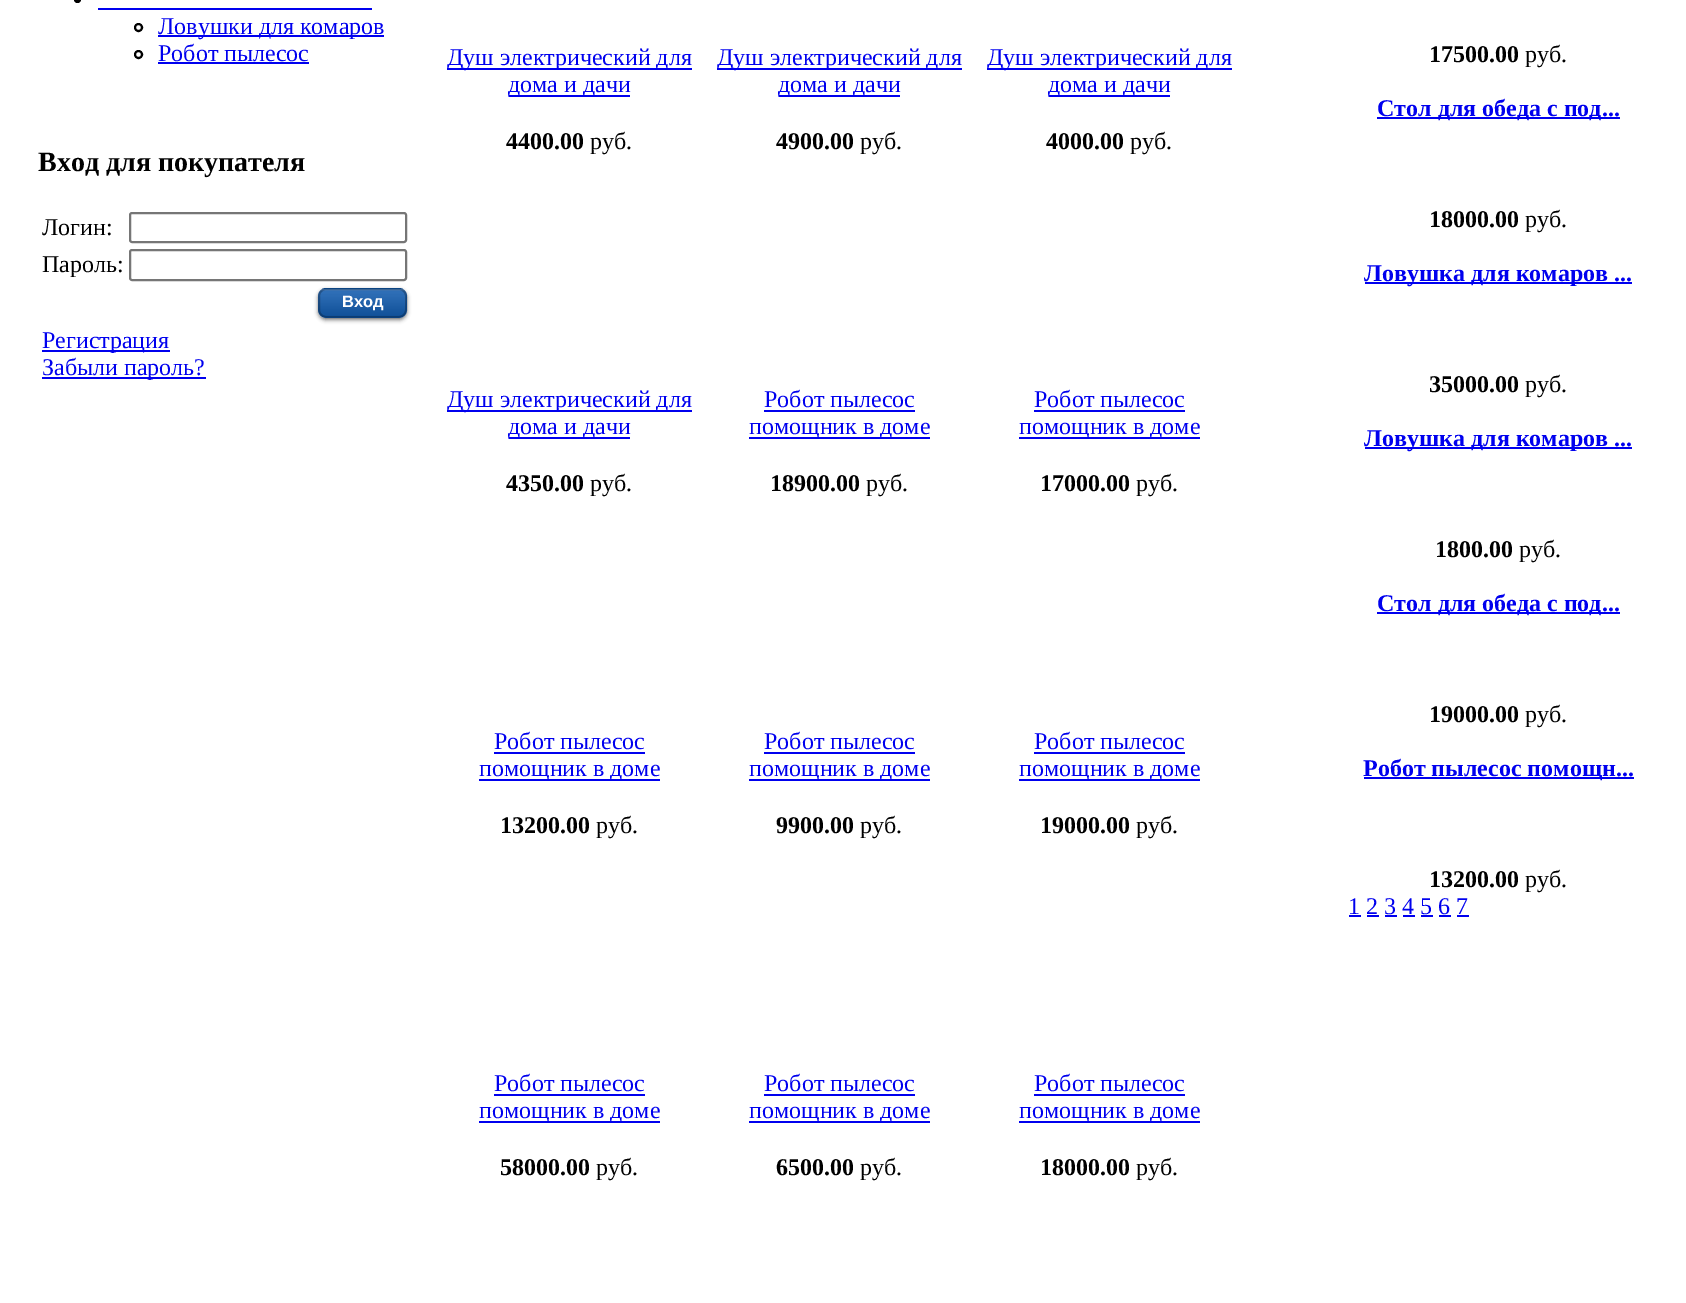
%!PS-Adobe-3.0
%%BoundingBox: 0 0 1686 1303
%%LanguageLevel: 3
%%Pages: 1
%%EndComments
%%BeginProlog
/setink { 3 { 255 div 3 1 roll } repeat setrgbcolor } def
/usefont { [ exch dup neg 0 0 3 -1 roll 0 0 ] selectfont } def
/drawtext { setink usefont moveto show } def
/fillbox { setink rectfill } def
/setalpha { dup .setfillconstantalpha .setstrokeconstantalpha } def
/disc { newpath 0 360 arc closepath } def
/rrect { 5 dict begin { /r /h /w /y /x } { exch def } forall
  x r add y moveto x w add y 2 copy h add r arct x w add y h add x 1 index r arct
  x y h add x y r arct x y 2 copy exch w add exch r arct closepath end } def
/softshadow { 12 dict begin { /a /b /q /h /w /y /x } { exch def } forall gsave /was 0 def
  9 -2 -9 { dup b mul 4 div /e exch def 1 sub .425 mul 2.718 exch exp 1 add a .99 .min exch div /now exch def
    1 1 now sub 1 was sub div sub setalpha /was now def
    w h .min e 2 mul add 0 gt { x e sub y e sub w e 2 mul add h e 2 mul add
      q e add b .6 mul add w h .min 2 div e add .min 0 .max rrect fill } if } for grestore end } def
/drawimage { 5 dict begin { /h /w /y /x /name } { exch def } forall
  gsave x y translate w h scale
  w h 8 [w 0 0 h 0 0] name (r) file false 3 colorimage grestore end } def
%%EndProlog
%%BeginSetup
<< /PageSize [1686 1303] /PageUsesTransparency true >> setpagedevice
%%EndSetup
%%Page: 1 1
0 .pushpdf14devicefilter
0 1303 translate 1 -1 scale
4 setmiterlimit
0 0 1686 1303 255 255 255 fillbox
0 0 0 setink
77.5 -0.5 3.5 disc fill
98 8 274 2 0 0 238 fillbox
0 0 0 setink
2 setlinewidth
138.5 27.5 3.5 disc stroke
158 35 226 2 0 0 238 fillbox
(Ловушки для комаров) 158 34 /LiberationSerif-Regular 24 0 0 238 drawtext
0 0 0 setink
138.5 54.5 3.5 disc stroke
(Робот пылесос) 158 61 /LiberationSerif-Regular 24 0 0 238 drawtext
158 62 151 2 0 0 238 fillbox
(Вход для покупателя) 38 171 /LiberationSerif-Bold 28 0 0 0 drawtext
(Логин:) 42 235 /LiberationSerif-Regular 24 0 0 0 drawtext
118 118 118 setink
130 213 276 29 2 rrect stroke
(Пароль:) 42 272 /LiberationSerif-Regular 24 0 0 0 drawtext
118 118 118 setink
130 250 276 30 2 rrect stroke
0 0 0 setink
318 290 89 30 8 2 0.5 softshadow
14 89 174 setink
318 288 89 30 8 rrect fill
(assets/img1.rgb) 318 289 89 29 drawimage
0.25 setalpha
0 0 0 setink
319 289 87 28 7 rrect stroke
1 setalpha
(Вход) 342 307 /LiberationSans-Bold 16.5 255 255 255 drawtext
42 350 128 2 0 0 238 fillbox
(Регистрация) 42 348 /LiberationSerif-Regular 24 0 0 238 drawtext
42 377 164 2 0 0 238 fillbox
(Забыли пароль?) 42 375 /LiberationSerif-Regular 24 0 0 238 drawtext
447 68 245 2 0 0 238 fillbox
(Душ электрический для) 447 65 /LiberationSerif-Regular 24 0 0 238 drawtext
509 95 121 2 0 0 238 fillbox
(дома и дачи) 508 92 /LiberationSerif-Regular 24 0 0 238 drawtext
(4400.00) 506 149 /LiberationSerif-Bold 24 0 0 0 drawtext
(руб.) 590 149 /LiberationSerif-Regular 24 0 0 0 drawtext
717 68 245 2 0 0 238 fillbox
(Душ электрический для) 717 65 /LiberationSerif-Regular 24 0 0 238 drawtext
779 95 121 2 0 0 238 fillbox
(дома и дачи) 778 92 /LiberationSerif-Regular 24 0 0 238 drawtext
(4900.00) 776 149 /LiberationSerif-Bold 24 0 0 0 drawtext
(руб.) 860 149 /LiberationSerif-Regular 24 0 0 0 drawtext
987 68 245 2 0 0 238 fillbox
(Душ электрический для) 987 65 /LiberationSerif-Regular 24 0 0 238 drawtext
1049 95 121 2 0 0 238 fillbox
(дома и дачи) 1048 92 /LiberationSerif-Regular 24 0 0 238 drawtext
(4000.00) 1046 149 /LiberationSerif-Bold 24 0 0 0 drawtext
(руб.) 1130 149 /LiberationSerif-Regular 24 0 0 0 drawtext
447 410 245 2 0 0 238 fillbox
(Душ электрический для) 447 407 /LiberationSerif-Regular 24 0 0 238 drawtext
509 437 121 2 0 0 238 fillbox
(дома и дачи) 508 434 /LiberationSerif-Regular 24 0 0 238 drawtext
(4350.00) 506 491 /LiberationSerif-Bold 24 0 0 0 drawtext
(руб.) 590 491 /LiberationSerif-Regular 24 0 0 0 drawtext
(Робот пылесос) 764 407 /LiberationSerif-Regular 24 0 0 238 drawtext
764 410 151 2 0 0 238 fillbox
749 437 181 2 0 0 238 fillbox
(помощник в доме) 749 434 /LiberationSerif-Regular 24 0 0 238 drawtext
(18900.00) 770 491 /LiberationSerif-Bold 24 0 0 0 drawtext
(руб.) 866 491 /LiberationSerif-Regular 24 0 0 0 drawtext
(Робот пылесос) 1034 407 /LiberationSerif-Regular 24 0 0 238 drawtext
1034 410 151 2 0 0 238 fillbox
1019 437 181 2 0 0 238 fillbox
(помощник в доме) 1019 434 /LiberationSerif-Regular 24 0 0 238 drawtext
(17000.00) 1040 491 /LiberationSerif-Bold 24 0 0 0 drawtext
(руб.) 1136 491 /LiberationSerif-Regular 24 0 0 0 drawtext
(Робот пылесос) 494 749 /LiberationSerif-Regular 24 0 0 238 drawtext
494 752 151 2 0 0 238 fillbox
479 779 181 2 0 0 238 fillbox
(помощник в доме) 479 776 /LiberationSerif-Regular 24 0 0 238 drawtext
(13200.00) 500 833 /LiberationSerif-Bold 24 0 0 0 drawtext
(руб.) 596 833 /LiberationSerif-Regular 24 0 0 0 drawtext
(Робот пылесос) 764 749 /LiberationSerif-Regular 24 0 0 238 drawtext
764 752 151 2 0 0 238 fillbox
749 779 181 2 0 0 238 fillbox
(помощник в доме) 749 776 /LiberationSerif-Regular 24 0 0 238 drawtext
(9900.00) 776 833 /LiberationSerif-Bold 24 0 0 0 drawtext
(руб.) 860 833 /LiberationSerif-Regular 24 0 0 0 drawtext
(Робот пылесос) 1034 749 /LiberationSerif-Regular 24 0 0 238 drawtext
1034 752 151 2 0 0 238 fillbox
1019 779 181 2 0 0 238 fillbox
(помощник в доме) 1019 776 /LiberationSerif-Regular 24 0 0 238 drawtext
(19000.00) 1040 833 /LiberationSerif-Bold 24 0 0 0 drawtext
(руб.) 1136 833 /LiberationSerif-Regular 24 0 0 0 drawtext
(Робот пылесос) 494 1091 /LiberationSerif-Regular 24 0 0 238 drawtext
494 1094 151 2 0 0 238 fillbox
479 1121 181 2 0 0 238 fillbox
(помощник в доме) 479 1118 /LiberationSerif-Regular 24 0 0 238 drawtext
(58000.00) 500 1175 /LiberationSerif-Bold 24 0 0 0 drawtext
(руб.) 596 1175 /LiberationSerif-Regular 24 0 0 0 drawtext
(Робот пылесос) 764 1091 /LiberationSerif-Regular 24 0 0 238 drawtext
764 1094 151 2 0 0 238 fillbox
749 1121 181 2 0 0 238 fillbox
(помощник в доме) 749 1118 /LiberationSerif-Regular 24 0 0 238 drawtext
(6500.00) 776 1175 /LiberationSerif-Bold 24 0 0 0 drawtext
(руб.) 860 1175 /LiberationSerif-Regular 24 0 0 0 drawtext
(Робот пылесос) 1034 1091 /LiberationSerif-Regular 24 0 0 238 drawtext
1034 1094 151 2 0 0 238 fillbox
1019 1121 181 2 0 0 238 fillbox
(помощник в доме) 1019 1118 /LiberationSerif-Regular 24 0 0 238 drawtext
(18000.00) 1040 1175 /LiberationSerif-Bold 24 0 0 0 drawtext
(руб.) 1136 1175 /LiberationSerif-Regular 24 0 0 0 drawtext
(17500.00) 1429 62 /LiberationSerif-Bold 24 0 0 0 drawtext
(руб.) 1525 62 /LiberationSerif-Regular 24 0 0 0 drawtext
1377 117 243 2 0 0 238 fillbox
(Стол для обеда с под...) 1377 116 /LiberationSerif-Bold 24 0 0 238 drawtext
(18000.00) 1429 227 /LiberationSerif-Bold 24 0 0 0 drawtext
(руб.) 1525 227 /LiberationSerif-Regular 24 0 0 0 drawtext
1365 282 267 2 0 0 238 fillbox
(Ловушка для комаров ...) 1364 281 /LiberationSerif-Bold 24 0 0 238 drawtext
(35000.00) 1429 392 /LiberationSerif-Bold 24 0 0 0 drawtext
(руб.) 1525 392 /LiberationSerif-Regular 24 0 0 0 drawtext
1365 447 267 2 0 0 238 fillbox
(Ловушка для комаров ...) 1364 446 /LiberationSerif-Bold 24 0 0 238 drawtext
(1800.00) 1435 557 /LiberationSerif-Bold 24 0 0 0 drawtext
(руб.) 1519 557 /LiberationSerif-Regular 24 0 0 0 drawtext
1377 612 243 2 0 0 238 fillbox
(Стол для обеда с под...) 1377 611 /LiberationSerif-Bold 24 0 0 238 drawtext
(19000.00) 1429 722 /LiberationSerif-Bold 24 0 0 0 drawtext
(руб.) 1525 722 /LiberationSerif-Regular 24 0 0 0 drawtext
1364 777 270 2 0 0 238 fillbox
(Робот пылесос помощн...) 1363 776 /LiberationSerif-Bold 24 0 0 238 drawtext
(13200.00) 1429 887 /LiberationSerif-Bold 24 0 0 0 drawtext
(руб.) 1525 887 /LiberationSerif-Regular 24 0 0 0 drawtext
(1 2 3 4 5 6 7) 1348 914 /LiberationSerif-Regular 24 0 0 238 drawtext
1349 915 12 2 0 0 238 fillbox
1367 915 12 2 0 0 238 fillbox
1385 915 12 2 0 0 238 fillbox
1403 915 12 2 0 0 238 fillbox
1421 915 12 2 0 0 238 fillbox
1439 915 12 2 0 0 238 fillbox
1457 915 12 2 0 0 238 fillbox
.poppdf14devicefilter showpage
%%EOF
